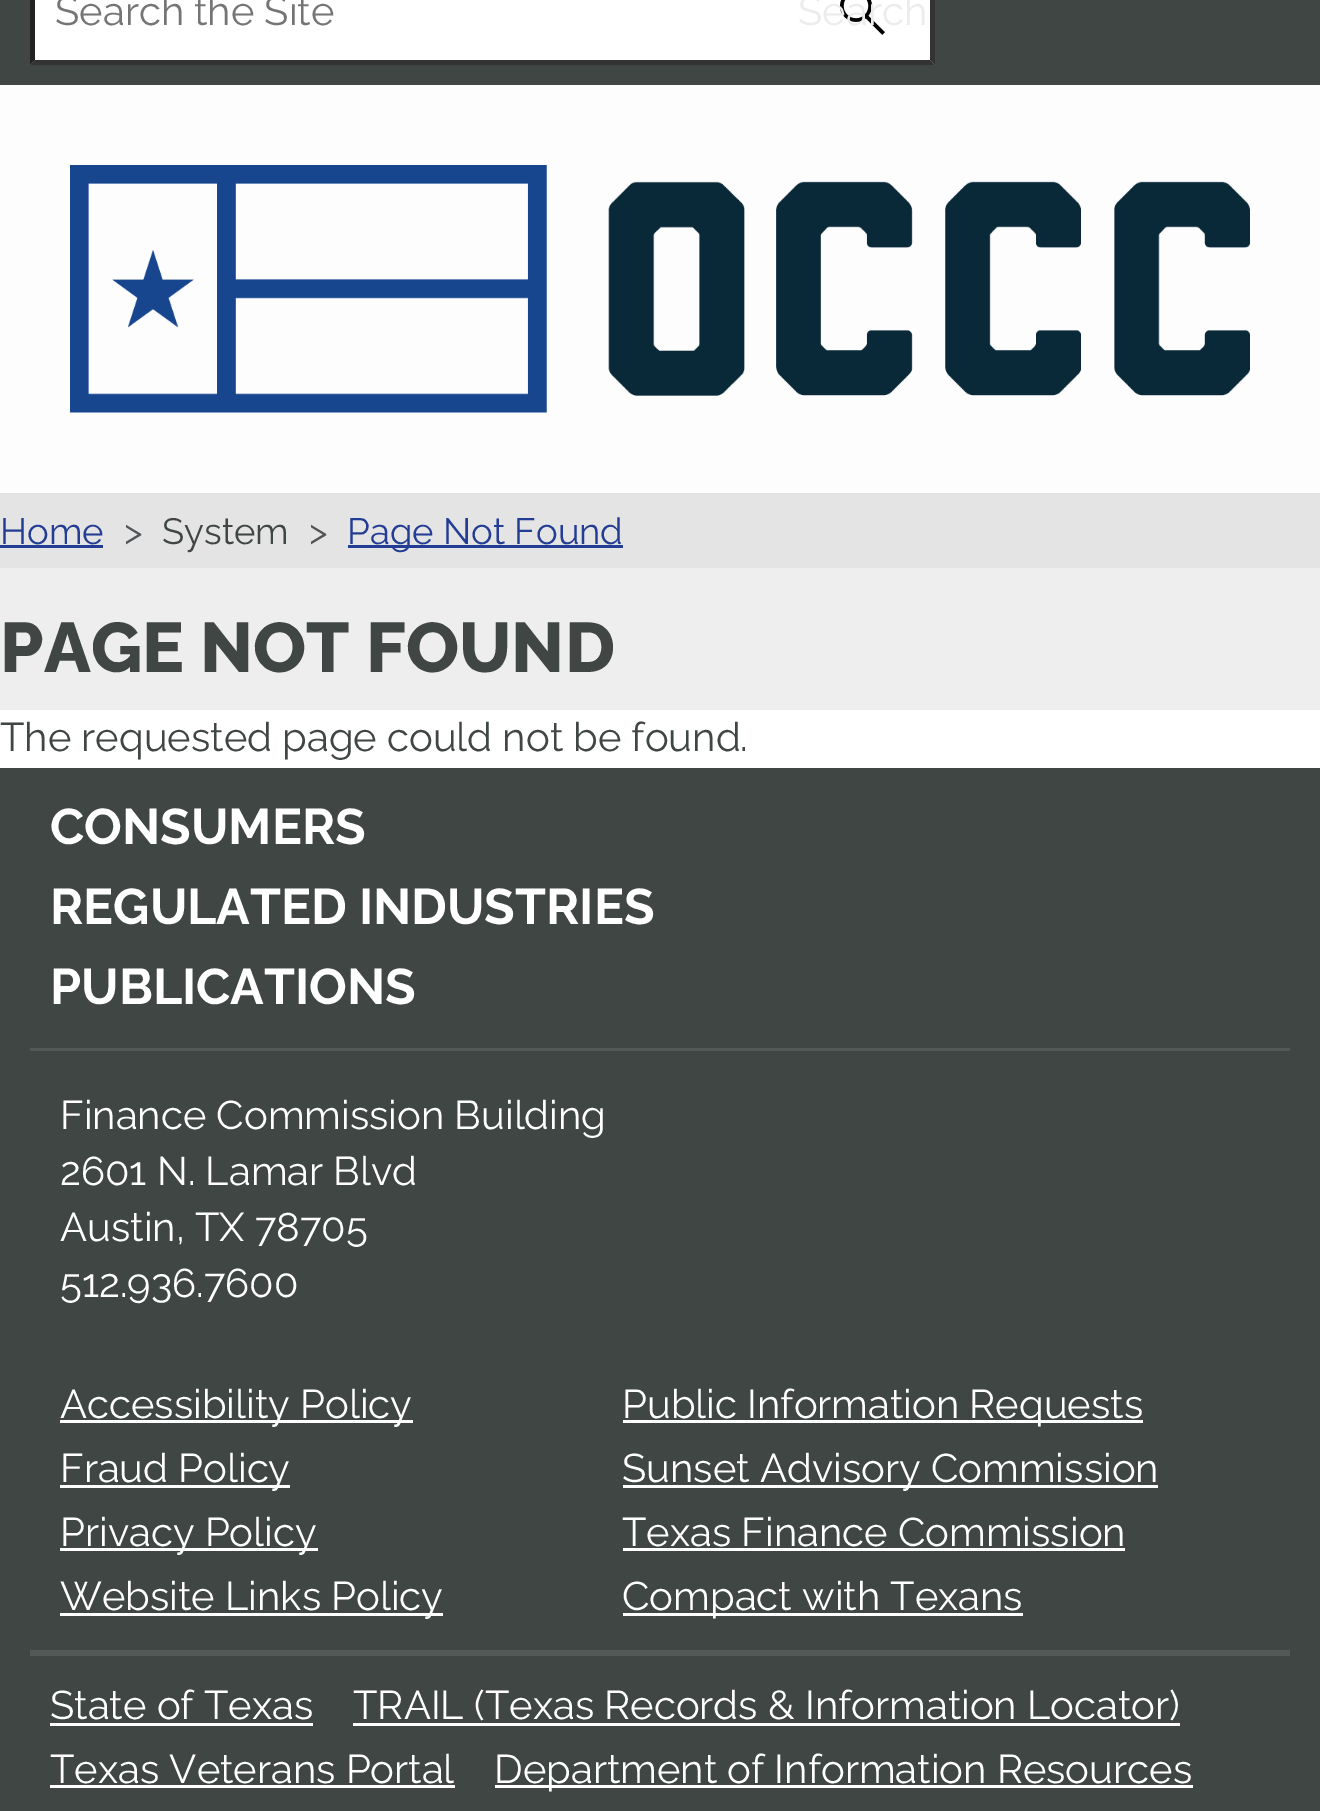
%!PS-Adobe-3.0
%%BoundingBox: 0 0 1320 1811
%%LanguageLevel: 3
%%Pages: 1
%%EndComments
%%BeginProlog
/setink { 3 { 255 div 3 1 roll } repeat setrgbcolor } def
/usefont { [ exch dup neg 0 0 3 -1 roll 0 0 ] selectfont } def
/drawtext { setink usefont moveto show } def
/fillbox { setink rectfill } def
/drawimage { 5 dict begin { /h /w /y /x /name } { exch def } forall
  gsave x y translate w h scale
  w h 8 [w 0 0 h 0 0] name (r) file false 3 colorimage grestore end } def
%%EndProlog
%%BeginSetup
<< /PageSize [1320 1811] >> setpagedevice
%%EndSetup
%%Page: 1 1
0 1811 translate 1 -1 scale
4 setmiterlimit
0 0 1320 1811 238 238 238 fillbox
0 0 1320 85 63 70 67 fillbox
30 0 905 65 255 255 255 fillbox
51 51 51 setink
935 -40 moveto 935 65 lineto 930 60 lineto 930 -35 lineto closepath fill
935 65 moveto 30 65 lineto 35 60 lineto 930 60 lineto closepath fill
34 34 34 setink
30 65 moveto 30 -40 lineto 35 -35 lineto 35 60 lineto closepath fill
(Search the Site) 55 25 /Raleway-Regular 40 117 117 117 drawtext
(assets/img1.rgb) 840 0 45 35 drawimage
(Search) 798 25 /Raleway-Regular 40 236 236 236 drawtext
0 85 1320 408 253 253 253 fillbox
(assets/img2.rgb) 70 165 1180 248 drawimage
0 493 1320 75 228 228 228 fillbox
(Home) 0 544 /Raleway-Regular 36.5 36 61 148 drawtext
0 545 103 3 36 61 148 fillbox
(>) 124 544 /Raleway-Regular 36.5 82 85 88 drawtext
(System) 162 544 /Raleway-Regular 36.5 63 70 67 drawtext
(>) 309 544 /Raleway-Regular 36.5 82 85 88 drawtext
348 545 275 3 36 61 148 fillbox
(Page Not Found) 347 544 /Raleway-Regular 36.5 36 61 148 drawtext
(PAGE NOT FOUND) 0 672 /Raleway-ExtraBold 70 63 70 67 drawtext
0 710 1320 58 255 255 255 fillbox
(The requested page could not be found.) 0 751 /Raleway-Regular 40 63 70 67 drawtext
0 768 1320 1043 63 70 67 fillbox
30 1048 1260 3 82 89 86 fillbox
(CONSUMERS) 50 844 /Raleway-Bold 50 255 255 255 drawtext
(REGULATED INDUSTRIES) 50 924 /Raleway-Bold 50 255 255 255 drawtext
(PUBLICATIONS) 50 1004 /Raleway-Bold 50 255 255 255 drawtext
30 1650 1260 6 82 89 86 fillbox
(Finance Commission Building) 60 1129 /Raleway-Regular 40 255 255 255 drawtext
(2601 N. Lamar Blvd) 60 1185 /Raleway-Regular 40 255 255 255 drawtext
(Austin, TX 78705) 60 1241 /Raleway-Regular 40 255 255 255 drawtext
(512.936.7600) 60 1297 /Raleway-Regular 40 255 255 255 drawtext
60 1420 353 3 255 255 255 fillbox
(Accessibility Policy) 60 1418 /Raleway-Regular 40 255 255 255 drawtext
623 1420 520 3 255 255 255 fillbox
(Public Information Requests) 622 1418 /Raleway-Regular 40 255 255 255 drawtext
60 1485 230 3 255 255 255 fillbox
(Fraud Policy) 60 1482 /Raleway-Regular 40 255 255 255 drawtext
623 1485 535 3 255 255 255 fillbox
(Sunset Advisory Commission) 622 1482 /Raleway-Regular 40 255 255 255 drawtext
60 1548 258 3 255 255 255 fillbox
(Privacy Policy) 60 1546 /Raleway-Regular 40 255 255 255 drawtext
(Texas Finance Commission) 622 1546 /Raleway-Regular 40 255 255 255 drawtext
623 1548 502 3 255 255 255 fillbox
60 1613 383 3 255 255 255 fillbox
(Website Links Policy) 60 1610 /Raleway-Regular 40 255 255 255 drawtext
623 1613 400 3 255 255 255 fillbox
(Compact with Texans) 622 1610 /Raleway-Regular 40 255 255 255 drawtext
(State of Texas) 50 1719 /Raleway-Regular 40 255 255 255 drawtext
50 1723 263 3 255 255 255 fillbox
(TRAIL \(Texas Records & Information Locator\)) 353 1719 /Raleway-Regular 40 255 255 255 drawtext
353 1723 827 3 255 255 255 fillbox
(Texas Veterans Portal) 50 1783 /Raleway-Regular 40 255 255 255 drawtext
50 1785 405 3 255 255 255 fillbox
495 1785 698 3 255 255 255 fillbox
(Department of Information Resources) 494 1783 /Raleway-Regular 40 255 255 255 drawtext
showpage
%%EOF
